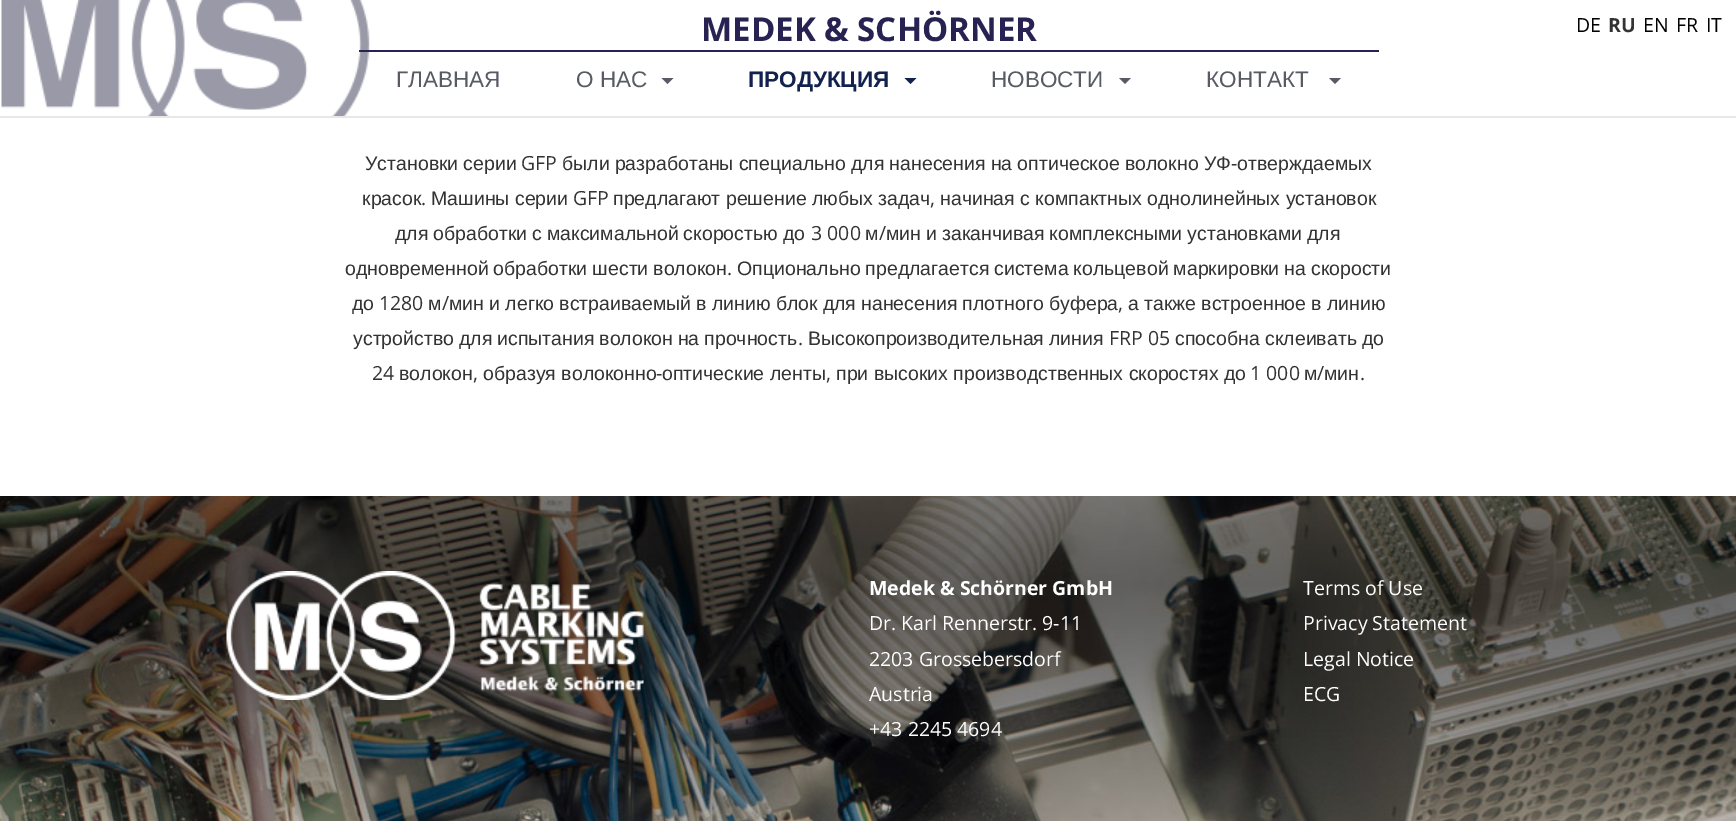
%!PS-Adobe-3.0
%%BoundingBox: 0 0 1736 821
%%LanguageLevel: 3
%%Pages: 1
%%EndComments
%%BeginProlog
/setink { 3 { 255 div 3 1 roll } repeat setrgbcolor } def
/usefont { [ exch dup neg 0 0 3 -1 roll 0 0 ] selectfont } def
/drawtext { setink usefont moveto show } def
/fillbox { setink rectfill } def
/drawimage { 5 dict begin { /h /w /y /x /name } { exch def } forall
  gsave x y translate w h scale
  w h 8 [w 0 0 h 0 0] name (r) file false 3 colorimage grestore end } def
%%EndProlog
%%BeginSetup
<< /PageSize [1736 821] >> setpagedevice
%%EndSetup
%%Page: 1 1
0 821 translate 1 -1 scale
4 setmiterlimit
0 0 1736 821 255 255 255 fillbox
(assets/img1.rgb) 1 0 369 116 drawimage
0 116 1736 2 231 231 231 fillbox
359 50 1020 2 39 34 81 fillbox
(MEDEK & SCHÖRNER) 701 41 /OpenSans-Bold 33 39 34 81 drawtext
(ГЛАВНАЯ) 396 87 /LiberationSans-Regular 22.5 88 91 100 drawtext
(О НАС) 576 87 /LiberationSans-Regular 22.5 88 91 100 drawtext
661.5 78 moveto 673.5 78 lineto 667.5 84 lineto closepath fill
(ПРОДУКЦИЯ) 748 87 /LiberationSans-Bold 22.5 18 34 79 drawtext
904.5 78 moveto 916.5 78 lineto 910.5 84 lineto closepath fill
(НОВОСТИ) 991 87 /LiberationSans-Regular 22.5 88 91 100 drawtext
1119 78 moveto 1131 78 lineto 1125 84 lineto closepath fill
(КОНТАКТ) 1206 87 /LiberationSans-Regular 22.5 88 91 100 drawtext
1329 78 moveto 1341 78 lineto 1335 84 lineto closepath fill
(DE) 1576 32 /OpenSans-Regular 19.5 0 0 0 drawtext
(RU) 1608 32 /OpenSans-Bold 19.5 51 51 51 drawtext
(EN) 1643 32 /OpenSans-Regular 19.5 0 0 0 drawtext
(FR) 1676 32 /OpenSans-Regular 19.5 0 0 0 drawtext
(IT) 1706 32 /OpenSans-Regular 19.5 0 0 0 drawtext
/LiberationSans-Regular 19.5 usefont
51 51 51 setink
365 170 moveto -0.25 0 32 (Установки серии) widthshow
(GFP) 521 170 /OpenSans-Regular 19.5 51 51 51 drawtext
/LiberationSans-Regular 19.5 usefont
562 170 moveto -0.25 0 32 (были разработаны специально для нанесения на оптическое волокно УФ) widthshow
(-) 1231 170 /OpenSans-Regular 19.5 51 51 51 drawtext
(отверждаемых) 1237 170 /LiberationSans-Regular 19.5 51 51 51 drawtext
(красок) 362 205 /LiberationSans-Regular 19.5 51 51 51 drawtext
(.) 421 205 /OpenSans-Regular 19.5 51 51 51 drawtext
(Машины серии) 431 205 /LiberationSans-Regular 19.5 51 51 51 drawtext
(GFP) 573 205 /OpenSans-Regular 19.5 51 51 51 drawtext
(предлагают решение любых задач) 613 205 /LiberationSans-Regular 19.5 51 51 51 drawtext
(,) 930 205 /OpenSans-Regular 19.5 51 51 51 drawtext
(начиная с компактных однолинейных установок) 940 205 /LiberationSans-Regular 19.5 51 51 51 drawtext
395 240 moveto -0.5 0 32 (для обработки с максимальной скоростью до) widthshow
(3 000) 811 240 /OpenSans-Regular 19.5 51 51 51 drawtext
(м) 865 240 /LiberationSans-Regular 19.5 51 51 51 drawtext
(/) 879 240 /OpenSans-Regular 19.5 51 51 51 drawtext
/LiberationSans-Regular 19.5 usefont
886 240 moveto -0.5 0 32 (мин и заканчивая комплексными установками для) widthshow
345 275 moveto -0.5 0 32 (одновременной обработки шести волокон) widthshow
(.) 727 275 /OpenSans-Regular 19.5 51 51 51 drawtext
/LiberationSans-Regular 19.5 usefont
737 275 moveto -0.5 0 32 (Опционально предлагается система кольцевой маркировки на скорости) widthshow
(до) 352 310 /LiberationSans-Regular 19.5 51 51 51 drawtext
(1280) 379 310 /OpenSans-Regular 19.5 51 51 51 drawtext
(м) 428 310 /LiberationSans-Regular 19.5 51 51 51 drawtext
(/) 442 310 /OpenSans-Regular 19.5 51 51 51 drawtext
/LiberationSans-Regular 19.5 usefont
449 310 moveto -0.25 0 32 (мин и легко встраиваемый в линию блок для нанесения плотного буфера) widthshow
(,) 1118 310 /OpenSans-Regular 19.5 51 51 51 drawtext
/LiberationSans-Regular 19.5 usefont
1128 310 moveto -0.25 0 32 (а также встроенное в линию) widthshow
353 345 moveto -0.5 0 32 (устройство для испытания волокон на прочность) widthshow
(.) 798 345 /OpenSans-Regular 19.5 51 51 51 drawtext
(Высокопроизводительная) 808 345 /LiberationSans-Regular 19.5 51 51 51 drawtext
(линия) 1049 345 /LiberationSans-Regular 19.5 51 51 51 drawtext
(FRP 05) 1109 345 /OpenSans-Regular 19.5 51 51 51 drawtext
(способна) 1175 345 /LiberationSans-Regular 19.5 51 51 51 drawtext
(склеивать) 1265 345 /LiberationSans-Regular 19.5 51 51 51 drawtext
(до) 1362 345 /LiberationSans-Regular 19.5 51 51 51 drawtext
(24) 372 380 /OpenSans-Regular 19.5 51 51 51 drawtext
(волокон) 399 380 /LiberationSans-Regular 19.5 51 51 51 drawtext
(образуя волоконно) 483 380 /LiberationSans-Regular 19.5 51 51 51 drawtext
(-) 656 380 /OpenSans-Regular 19.5 51 51 51 drawtext
(оптические ленты) 662 380 /LiberationSans-Regular 19.5 51 51 51 drawtext
(при высоких производственных скоростях до) 836 380 /LiberationSans-Regular 19.5 51 51 51 drawtext
(1 000) 1250 380 /OpenSans-Regular 19.5 51 51 51 drawtext
(м) 1304 380 /LiberationSans-Regular 19.5 51 51 51 drawtext
(/) 1317 380 /OpenSans-Regular 19.5 51 51 51 drawtext
(мин) 1324 380 /LiberationSans-Regular 19.5 51 51 51 drawtext
(,) 473 380 /OpenSans-Regular 19.5 51 51 51 drawtext
(,) 826 380 /OpenSans-Regular 19.5 51 51 51 drawtext
(.) 1360 380 /OpenSans-Regular 19.5 51 51 51 drawtext
(assets/img2.rgb) 0 496 1736 325 drawimage
(assets/img3.rgb) 226 571 418 129 drawimage
(Medek & Schörner GmbH) 869 595 /OpenSans-Bold 19.5 255 255 255 drawtext
(Dr. Karl Rennerstr. 9-11) 869 630 /OpenSans-Regular 19.5 255 255 255 drawtext
(2203 Grossebersdorf) 869 666 /OpenSans-Regular 19.5 255 255 255 drawtext
(Austria) 869 701 /OpenSans-Regular 19.5 255 255 255 drawtext
(+43 2245 4694) 869 736 /OpenSans-Regular 19.5 255 255 255 drawtext
(Terms of Use) 1303 595 /OpenSans-Regular 19.5 255 255 255 drawtext
(Privacy Statement) 1303 630 /OpenSans-Regular 19.5 255 255 255 drawtext
(Legal Notice) 1303 666 /OpenSans-Regular 19.5 255 255 255 drawtext
(ECG) 1303 701 /OpenSans-Regular 19.5 255 255 255 drawtext
showpage
%%EOF
